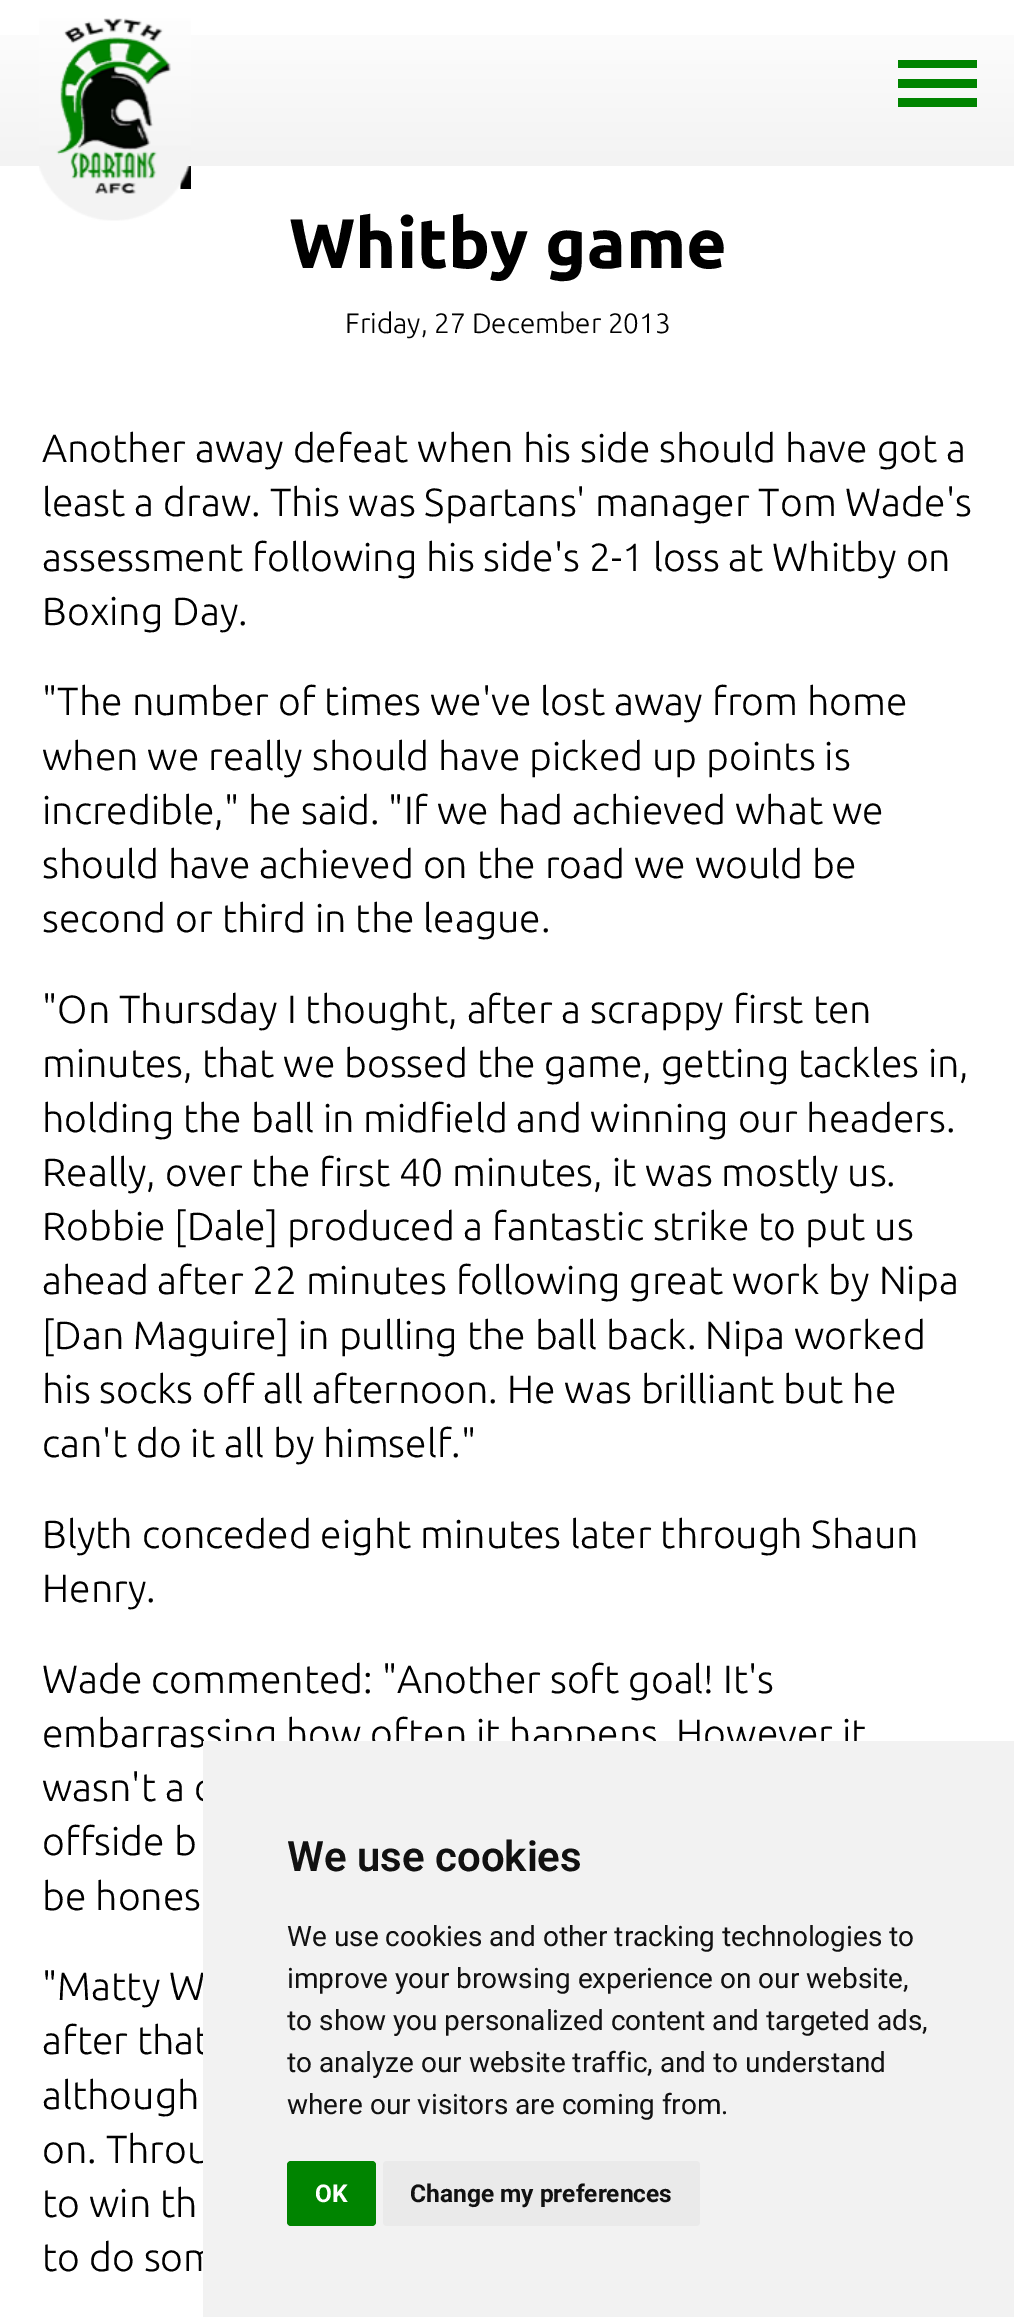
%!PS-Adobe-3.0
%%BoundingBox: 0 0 1014 2317
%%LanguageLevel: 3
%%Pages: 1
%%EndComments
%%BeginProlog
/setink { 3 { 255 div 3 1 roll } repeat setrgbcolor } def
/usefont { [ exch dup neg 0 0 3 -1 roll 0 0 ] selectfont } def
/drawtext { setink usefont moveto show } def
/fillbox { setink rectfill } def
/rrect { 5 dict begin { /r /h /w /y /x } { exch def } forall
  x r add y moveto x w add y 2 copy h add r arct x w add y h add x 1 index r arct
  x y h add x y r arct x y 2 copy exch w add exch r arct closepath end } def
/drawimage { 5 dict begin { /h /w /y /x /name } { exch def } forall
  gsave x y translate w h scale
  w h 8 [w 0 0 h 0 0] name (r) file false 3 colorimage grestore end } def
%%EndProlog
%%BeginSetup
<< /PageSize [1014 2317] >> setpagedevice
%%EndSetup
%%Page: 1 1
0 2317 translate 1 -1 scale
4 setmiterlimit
0 0 1014 2317 255 255 255 fillbox
gsave 0 35 moveto 1014 35 lineto 1014 166 lineto 0 166 lineto closepath clip newpath
<< /ShadingType 2 /ColorSpace /DeviceRGB /Coords [508 0 508 166] /Extend [true true] /Function << /FunctionType 2 /Domain [0 1] /C0 [1 1 1] /C1 [0.953 0.953 0.953] /N 1 >> >> shfill grestore
(assets/img1.rgb) 39 18 152 203 drawimage
898 60 79 8 0 132 0 fillbox
898 79 79 9 0 132 0 fillbox
898 98 79 9 0 132 0 fillbox
(Whitby game) 289 268 /Ubuntu-Bold 70 0 0 0 drawtext
(Friday, 27 December 2013) 345 333 /Ubuntu-Light 28 0 0 0 drawtext
(Another away defeat when his side should have got a) 42 462 /Ubuntu-Light 39.2 0 0 0 drawtext
(least a draw. This was Spartans' manager Tom Wade's) 42 516 /Ubuntu-Light 39.2 0 0 0 drawtext
(assessment following his side's 2-1 loss at Whitby on) 42 571 /Ubuntu-Light 39.2 0 0 0 drawtext
(Boxing Day.) 42 625 /Ubuntu-Light 39.2 0 0 0 drawtext
("The number of times we've lost away from home) 42 715 /Ubuntu-Light 39.2 0 0 0 drawtext
(when we really should have picked up points is) 42 770 /Ubuntu-Light 39.2 0 0 0 drawtext
(incredible," he said. "If we had achieved what we) 42 824 /Ubuntu-Light 39.2 0 0 0 drawtext
(should have achieved on the road we would be) 42 878 /Ubuntu-Light 39.2 0 0 0 drawtext
(second or third in the league.) 42 932 /Ubuntu-Light 39.2 0 0 0 drawtext
("On Thursday I thought, after a scrappy first ten) 42 1023 /Ubuntu-Light 39.2 0 0 0 drawtext
(minutes, that we bossed the game, getting tackles in,) 42 1077 /Ubuntu-Light 39.2 0 0 0 drawtext
(holding the ball in midfield and winning our headers.) 42 1132 /Ubuntu-Light 39.2 0 0 0 drawtext
(Really, over the first 40 minutes, it was mostly us.) 42 1186 /Ubuntu-Light 39.2 0 0 0 drawtext
(Robbie [Dale] produced a fantastic strike to put us) 42 1240 /Ubuntu-Light 39.2 0 0 0 drawtext
(ahead after 22 minutes following great work by Nipa) 42 1294 /Ubuntu-Light 39.2 0 0 0 drawtext
([Dan Maguire] in pulling the ball back. Nipa worked) 42 1349 /Ubuntu-Light 39.2 0 0 0 drawtext
(his socks off all afternoon. He was brilliant but he) 42 1403 /Ubuntu-Light 39.2 0 0 0 drawtext
(can't do it all by himself.") 42 1457 /Ubuntu-Light 39.2 0 0 0 drawtext
(Blyth conceded eight minutes later through Shaun) 42 1548 /Ubuntu-Light 39.2 0 0 0 drawtext
(Henry.) 42 1602 /Ubuntu-Light 39.2 0 0 0 drawtext
(Wade commented: "Another soft goal! It's) 42 1693 /Ubuntu-Light 39.2 0 0 0 drawtext
(embarrassing how often it happens. However it) 42 1747 /Ubuntu-Light 39.2 0 0 0 drawtext
(wasn't a c) 42 1801 /Ubuntu-Light 39.2 0 0 0 drawtext
(offside b) 42 1855 /Ubuntu-Light 39.2 0 0 0 drawtext
(be hones) 42 1910 /Ubuntu-Light 39.2 0 0 0 drawtext
("Matty W) 42 2000 /Ubuntu-Light 39.2 0 0 0 drawtext
(after that) 42 2054 /Ubuntu-Light 39.2 0 0 0 drawtext
(although) 42 2109 /Ubuntu-Light 39.2 0 0 0 drawtext
(on. Throu) 42 2163 /Ubuntu-Light 39.2 0 0 0 drawtext
(to win th) 42 2217 /Ubuntu-Light 39.2 0 0 0 drawtext
(to do som) 42 2271 /Ubuntu-Light 39.2 0 0 0 drawtext
203 1741 811 576 242 242 242 fillbox
(We use cookies) 287 1871 /Roboto-SemiBold 42 17 17 17 drawtext
(We use cookies and other tracking technologies to) 287 1946 /Roboto-Regular 28 17 17 17 drawtext
(improve your browsing experience on our website,) 287 1988 /Roboto-Regular 28 17 17 17 drawtext
(to show you personalized content and targeted ads,) 287 2030 /Roboto-Regular 28 17 17 17 drawtext
(to analyze our website traffic, and to understand) 287 2072 /Roboto-Regular 28 17 17 17 drawtext
(where our visitors are coming from.) 287 2114 /Roboto-Regular 28 17 17 17 drawtext
0 132 0 setink
287 2161 89 65 4 rrect fill
(OK) 315 2202 /Roboto-Bold 24.5 255 255 255 drawtext
234 234 234 setink
383 2161 317 65 4 rrect fill
(Change my preferences) 410 2202 /Roboto-Bold 24.5 17 17 17 drawtext
showpage
%%EOF
